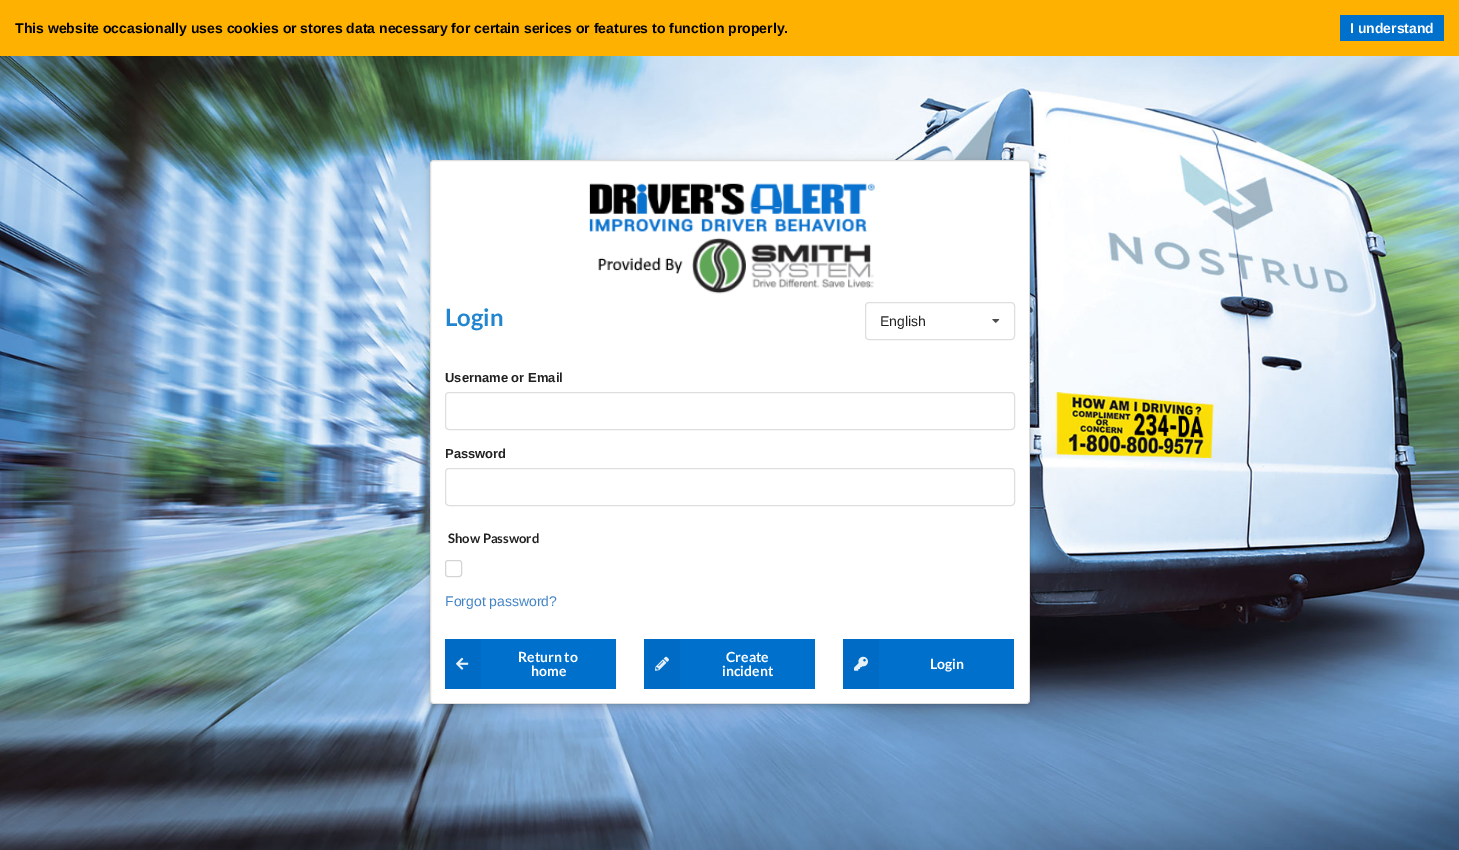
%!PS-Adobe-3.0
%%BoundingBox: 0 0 1459 850
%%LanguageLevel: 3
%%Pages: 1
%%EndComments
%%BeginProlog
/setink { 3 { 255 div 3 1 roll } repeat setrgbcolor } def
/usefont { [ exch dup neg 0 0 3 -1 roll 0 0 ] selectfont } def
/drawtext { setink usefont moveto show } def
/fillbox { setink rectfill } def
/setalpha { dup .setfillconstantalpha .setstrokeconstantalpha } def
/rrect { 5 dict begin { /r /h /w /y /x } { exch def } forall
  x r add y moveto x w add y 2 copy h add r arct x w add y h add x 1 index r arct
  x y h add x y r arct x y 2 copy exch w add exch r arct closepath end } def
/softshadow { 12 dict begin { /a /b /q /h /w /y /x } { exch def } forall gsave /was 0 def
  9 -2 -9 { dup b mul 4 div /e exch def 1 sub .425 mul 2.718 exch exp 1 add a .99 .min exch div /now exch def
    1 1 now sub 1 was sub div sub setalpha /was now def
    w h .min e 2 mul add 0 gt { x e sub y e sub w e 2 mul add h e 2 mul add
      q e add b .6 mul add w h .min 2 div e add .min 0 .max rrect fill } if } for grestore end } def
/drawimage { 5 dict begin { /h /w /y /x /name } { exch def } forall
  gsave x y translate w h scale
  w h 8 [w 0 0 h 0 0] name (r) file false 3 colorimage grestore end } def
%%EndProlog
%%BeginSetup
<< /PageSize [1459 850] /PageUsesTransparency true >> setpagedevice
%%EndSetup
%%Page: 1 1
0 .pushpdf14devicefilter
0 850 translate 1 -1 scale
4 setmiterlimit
0 0 1459 850 255 255 255 fillbox
0 0 1459 56 255 177 1 fillbox
(This website occasionally uses cookies or stores data necessary for certain serices or features to function properly.) 15 33 /LiberationSans-Bold 14 0 0 0 drawtext
1340 15 104 26 0 112 205 fillbox
(I understand) 1350 33 /LiberationSans-Bold 14 255 255 255 drawtext
(assets/img1.rgb) 0 56 1459 794 drawimage
34 36 38 setink
430 162 600 544 4 5 0.15 softshadow
430 162 600 544 4 2 0.12 softshadow
255 255 255 setink
430 160 600 544 4 rrect fill
0.15 setalpha
34 36 38 setink
430.5 160.5 599 543 3.5 rrect stroke
1 setalpha
(assets/img2.rgb) 589 183 286 111 drawimage
(Login) 445 326 /Lato-Bold 24 33 133 208 drawtext
222 222 222 setink
865.5 302.5 149 37 3.5 rrect stroke
(English) 880 326 /LiberationSans-Regular 14 33 33 33 drawtext
(assets/img3.rgb) 992 319 8 4 drawimage
(Username or Email) 445 382 /LiberationSans-Bold 13 33 33 33 drawtext
222 222 222 setink
445.5 392.5 569 37 3.5 rrect stroke
(Password) 445 458 /LiberationSans-Bold 13 33 33 33 drawtext
222 222 222 setink
445.5 468.5 569 37 3.5 rrect stroke
(Show Password) 448 543 /Lato-Bold 13 33 33 33 drawtext
212 212 213 setink
445.5 560.5 16 16 2.5 rrect stroke
(Forgot password?) 445 606 /LiberationSans-Regular 14 65 131 196 drawtext
481 639 135 50 0 112 205 fillbox
445 639 36 50 0 107 196 fillbox
(assets/img4.rgb) 456 657 13 13 drawimage
(Return to) 518 662 /Lato-Bold 14 255 255 255 drawtext
(home) 531 676 /Lato-Bold 14 255 255 255 drawtext
680 639 135 50 0 112 205 fillbox
644 639 36 50 0 107 196 fillbox
(assets/img5.rgb) 655 656 14 15 drawimage
(Create) 726 662 /Lato-Bold 14 255 255 255 drawtext
(incident) 722 676 /Lato-Bold 14 255 255 255 drawtext
879 639 135 50 0 112 205 fillbox
843 639 36 50 0 107 196 fillbox
(assets/img6.rgb) 854 656 14 15 drawimage
(Login) 930 669 /Lato-Bold 14 255 255 255 drawtext
.poppdf14devicefilter showpage
%%EOF
